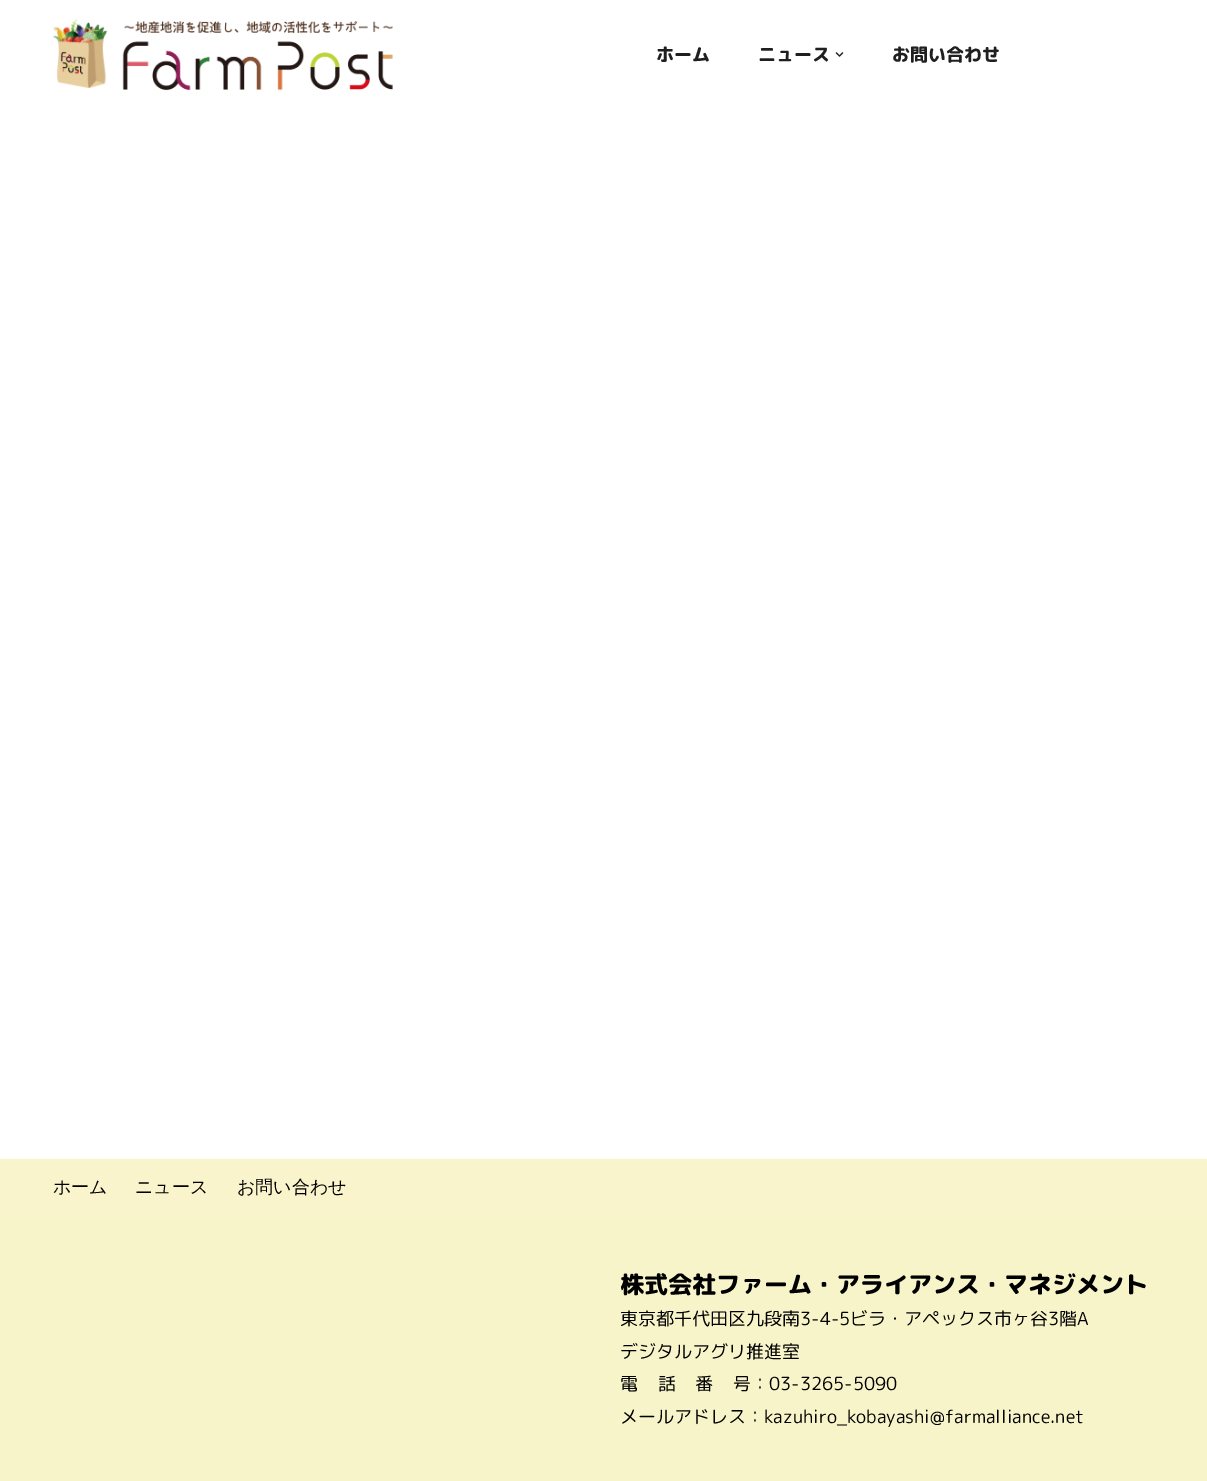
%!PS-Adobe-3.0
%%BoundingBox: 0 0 1207 1481
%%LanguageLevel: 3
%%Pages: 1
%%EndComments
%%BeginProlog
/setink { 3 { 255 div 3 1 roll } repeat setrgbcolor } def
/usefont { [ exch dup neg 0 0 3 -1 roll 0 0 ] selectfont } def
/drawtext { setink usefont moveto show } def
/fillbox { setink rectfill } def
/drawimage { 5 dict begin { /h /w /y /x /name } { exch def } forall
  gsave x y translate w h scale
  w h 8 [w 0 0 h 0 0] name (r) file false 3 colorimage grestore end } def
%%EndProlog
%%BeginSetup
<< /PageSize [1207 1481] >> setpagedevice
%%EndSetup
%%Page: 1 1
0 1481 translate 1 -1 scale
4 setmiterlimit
0 0 1207 1481 255 255 255 fillbox
(assets/img1.rgb) 53 19 340 72 drawimage
(ホーム) 656 61 /RoundedMplus1c-ExtraBold 18 31 31 32 drawtext
(ニュース) 758 61 /RoundedMplus1c-ExtraBold 18 31 31 32 drawtext
(assets/img2.rgb) 835 52 9 5 drawimage
(お問い合わせ) 892 61 /RoundedMplus1c-ExtraBold 18 31 31 32 drawtext
0 1159 1207 61 249 244 203 fillbox
(ホーム) 53 1193 /WenQuanYiZenHei-Medium 18 0 0 0 drawtext
(ニュース) 135 1193 /WenQuanYiZenHei-Medium 18 0 0 0 drawtext
(お問い合わせ) 237 1193 /WenQuanYiZenHei-Medium 18 0 0 0 drawtext
0 1220 1207 261 248 244 202 fillbox
(株式会社ファーム・アライアンス・マネジメント) 620 1293 /RoundedMplus1c-ExtraBold 24 0 0 0 drawtext
(東京都千代田区九段南3-4-5ビラ・アペックス市ヶ谷3階A) 620 1325 /RoundedMplus1c-Regular 18 0 0 0 drawtext
(デジタルアグリ推進室) 620 1358 /RoundedMplus1c-Regular 18 0 0 0 drawtext
(電 話 番 号：03-3265-5090) 620 1390 /RoundedMplus1c-Regular 18 0 0 0 drawtext
(メールアドレス：kazuhiro_kobayashi@farmalliance.net) 620 1423 /RoundedMplus1c-Regular 18 0 0 0 drawtext
showpage
%%EOF
